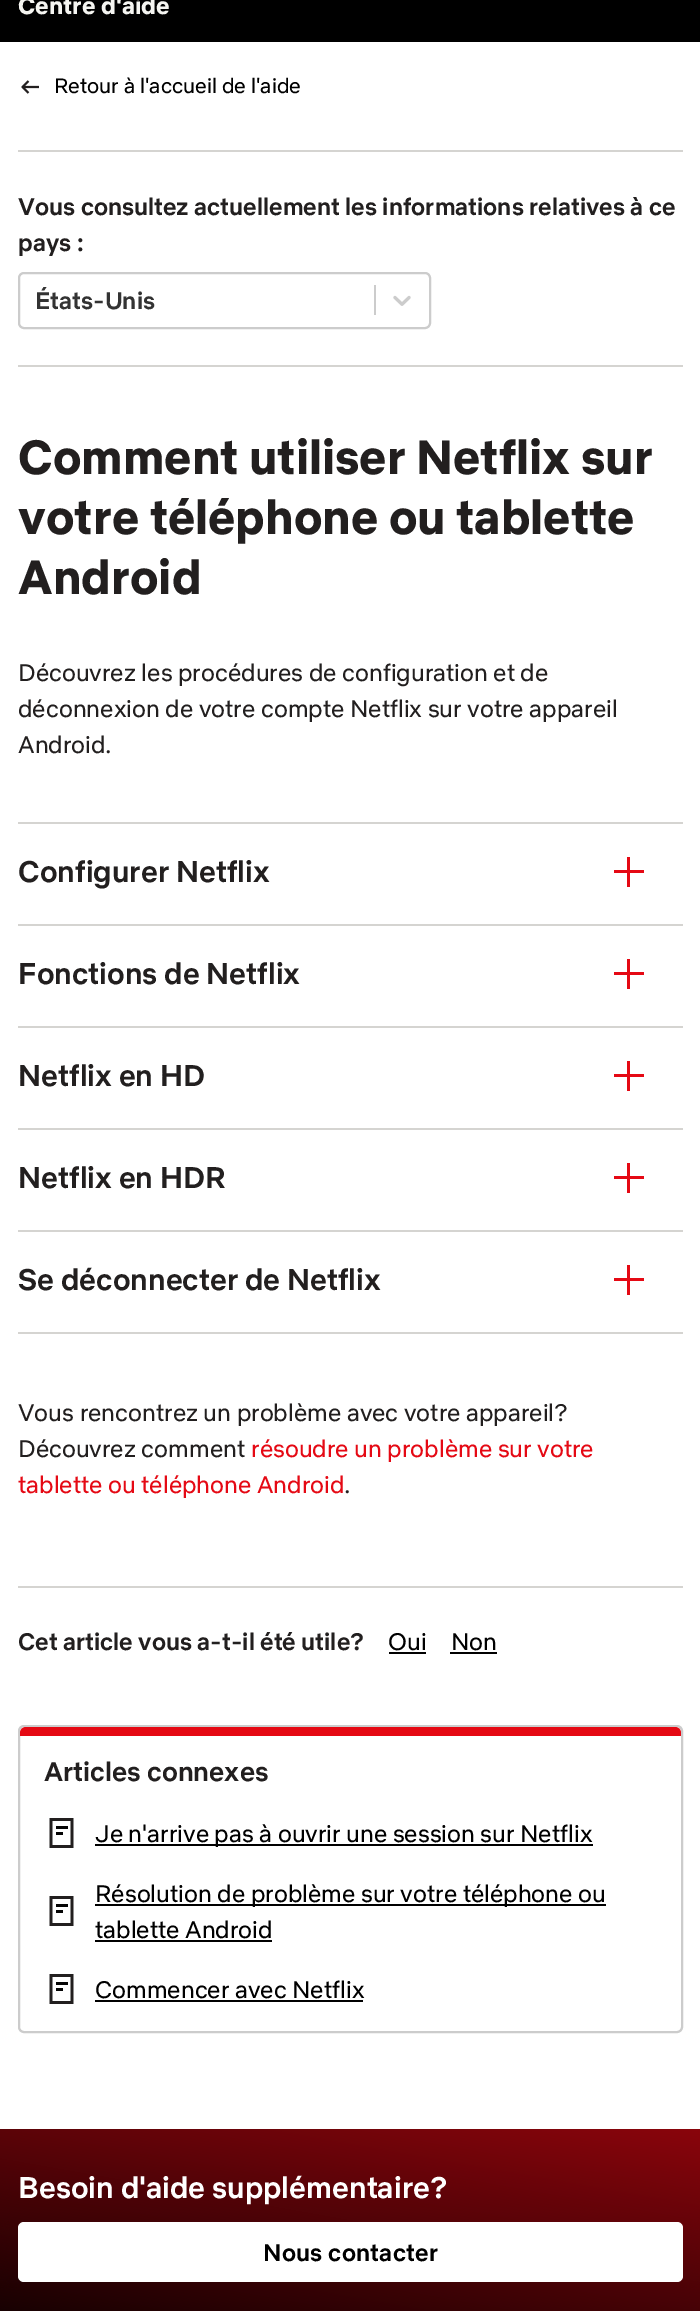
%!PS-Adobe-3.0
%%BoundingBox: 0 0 700 2311
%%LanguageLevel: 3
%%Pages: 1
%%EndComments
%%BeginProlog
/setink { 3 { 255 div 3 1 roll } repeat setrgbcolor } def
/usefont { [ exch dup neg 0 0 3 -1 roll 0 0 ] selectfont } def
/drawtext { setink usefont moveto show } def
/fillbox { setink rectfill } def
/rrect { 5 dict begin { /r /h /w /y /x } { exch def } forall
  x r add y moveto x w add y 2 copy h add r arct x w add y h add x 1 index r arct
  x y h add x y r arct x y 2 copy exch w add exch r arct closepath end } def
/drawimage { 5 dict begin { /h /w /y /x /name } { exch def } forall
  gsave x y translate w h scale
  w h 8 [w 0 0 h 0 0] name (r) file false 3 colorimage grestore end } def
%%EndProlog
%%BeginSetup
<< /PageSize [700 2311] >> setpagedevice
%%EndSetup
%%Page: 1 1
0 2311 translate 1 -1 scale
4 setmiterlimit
0 0 700 2311 255 255 255 fillbox
0 0 700 42 0 0 0 fillbox
(Centre d'aide) 18 14 /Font-Bold 24 245 245 241 drawtext
(assets/img1.rgb) 21 80 18 14 drawimage
(Retour à l'accueil de l'aide) 54 93 /Font-Regular 21 0 0 0 drawtext
18 150 665 2 213 212 209 fillbox
18 365 665 2 213 212 209 fillbox
(Vous consultez actuellement les informations relatives à ce) 18 215 /Font-Medium 24 34 31 31 drawtext
(pays :) 18 251 /Font-Medium 24 34 31 31 drawtext
204 204 204 setink
2 setlinewidth
19 273 411 55 5 rrect stroke
(États-Unis) 35 309 /Font-Medium 24 51 51 51 drawtext
374 285 2 30 204 204 204 fillbox
(assets/img2.rgb) 393 295 18 11 drawimage
(Comment utiliser Netflix sur) 18 474 /Font-Bold 48 34 31 31 drawtext
(votre téléphone ou tablette) 18 534 /Font-Bold 48 34 31 31 drawtext
(Android) 18 594 /Font-Bold 48 34 31 31 drawtext
(Découvrez les procédures de configuration et de) 18 681 /Font-Regular 24 34 31 31 drawtext
(déconnexion de votre compte Netflix sur votre appareil) 18 717 /Font-Regular 24 34 31 31 drawtext
(Android.) 18 753 /Font-Regular 24 34 31 31 drawtext
18 822 665 2 213 212 209 fillbox
18 924 665 2 213 212 209 fillbox
(Configurer Netflix) 18 882 /Font-Medium 30 34 31 31 drawtext
627 857 3 30 229 9 20 fillbox
614 870 30 3 229 9 20 fillbox
18 1026 665 2 213 212 209 fillbox
(Fonctions de Netflix) 18 984 /Font-Medium 30 34 31 31 drawtext
627 959 3 30 229 9 20 fillbox
614 972 30 3 229 9 20 fillbox
18 1128 665 2 213 212 209 fillbox
(Netflix en HD) 18 1086 /Font-Medium 30 34 31 31 drawtext
627 1061 3 30 229 9 20 fillbox
614 1074 30 3 229 9 20 fillbox
18 1230 665 2 213 212 209 fillbox
(Netflix en HDR) 18 1188 /Font-Medium 30 34 31 31 drawtext
627 1163 3 30 229 9 20 fillbox
614 1176 30 3 229 9 20 fillbox
18 1332 665 2 213 212 209 fillbox
(Se déconnecter de Netflix) 18 1290 /Font-Medium 30 34 31 31 drawtext
627 1265 3 30 229 9 20 fillbox
614 1278 30 3 229 9 20 fillbox
(Vous rencontrez un problème avec votre appareil?) 18 1421 /Font-Regular 24 34 31 31 drawtext
(Découvrez comment) 18 1457 /Font-Regular 24 34 31 31 drawtext
(résoudre un problème sur votre) 251 1457 /Font-Regular 24 229 9 20 drawtext
(tablette ou téléphone Android) 18 1493 /Font-Regular 24 229 9 20 drawtext
(.) 344 1493 /Font-Regular 24 34 31 31 drawtext
18 1586 665 2 213 212 209 fillbox
(Cet article vous a-t-il été utile?) 18 1650 /Font-Medium 24 34 31 31 drawtext
(Oui) 388 1650 /Font-Regular 24 0 0 0 drawtext
389 1652 37 2 0 0 0 fillbox
(Non) 451 1650 /Font-Regular 24 0 0 0 drawtext
450 1652 47 2 0 0 0 fillbox
204 204 204 setink
19 1726 663 306 5 rrect stroke
229 9 20 setink
26 1727 moveto 675 1727 lineto 678.5 1727 681 1729.5 681 1733 curveto 681 1736 lineto 20 1736 lineto 20 1733 lineto 20 1729.5 22.5 1727 26 1727 curveto closepath fill
(Articles connexes) 44 1781 /Font-Medium 27 34 31 31 drawtext
(assets/img3.rgb) 49 1818 25 30 drawimage
95 1844 498 2 0 0 0 fillbox
(Je n'arrive pas à ouvrir une session sur Netflix) 95 1842 /Font-Regular 24 0 0 0 drawtext
(assets/img3.rgb) 49 1896 25 30 drawimage
95 1904 511 2 0 0 0 fillbox
(Résolution de problème sur votre téléphone ou) 95 1902 /Font-Regular 24 0 0 0 drawtext
(tablette Android) 95 1938 /Font-Regular 24 0 0 0 drawtext
95 1940 177 2 0 0 0 fillbox
(assets/img3.rgb) 49 1974 25 30 drawimage
(Commencer avec Netflix) 95 1998 /Font-Regular 24 0 0 0 drawtext
95 2000 268 2 0 0 0 fillbox
gsave 0 2129 moveto 700 2129 lineto 700 2311 lineto 0 2311 lineto closepath clip newpath
<< /ShadingType 2 /ColorSpace /DeviceRGB /Coords [275 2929 467 1842] /Extend [true true] /Function << /FunctionType 3 /Domain [0 1] /Functions [<< /FunctionType 2 /Domain [0 1] /C0 [0 0 0] /C1 [0 0 0] /N 1 >> << /FunctionType 2 /Domain [0 1] /C0 [0 0 0] /C1 [0.898 0.035 0.078] /N 1 >>] /Bounds [0.45] /Encode [0 1 0 1] >> >> shfill grestore
(Besoin d'aide supplémentaire?) 18 2198 /Font-Medium 30 255 255 255 drawtext
18 2222 665 60 6 rrect fill
/Font-Medium 24 usefont
0 0 0 setink
263 2261 moveto 0.25 0 (Nous contacter) ashow
showpage
%%EOF
